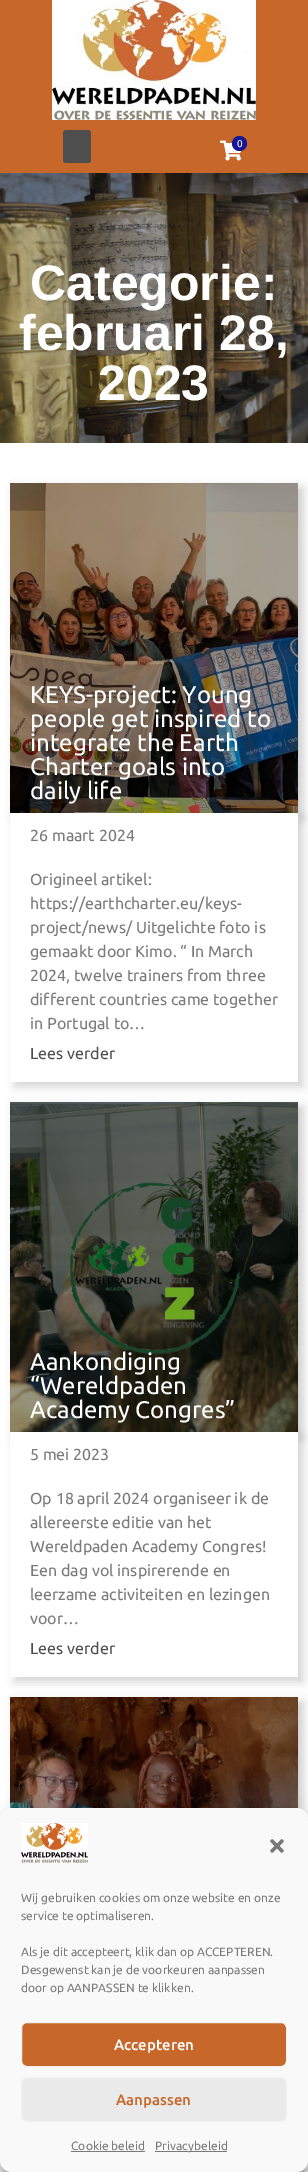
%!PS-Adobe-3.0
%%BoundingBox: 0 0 308 2172
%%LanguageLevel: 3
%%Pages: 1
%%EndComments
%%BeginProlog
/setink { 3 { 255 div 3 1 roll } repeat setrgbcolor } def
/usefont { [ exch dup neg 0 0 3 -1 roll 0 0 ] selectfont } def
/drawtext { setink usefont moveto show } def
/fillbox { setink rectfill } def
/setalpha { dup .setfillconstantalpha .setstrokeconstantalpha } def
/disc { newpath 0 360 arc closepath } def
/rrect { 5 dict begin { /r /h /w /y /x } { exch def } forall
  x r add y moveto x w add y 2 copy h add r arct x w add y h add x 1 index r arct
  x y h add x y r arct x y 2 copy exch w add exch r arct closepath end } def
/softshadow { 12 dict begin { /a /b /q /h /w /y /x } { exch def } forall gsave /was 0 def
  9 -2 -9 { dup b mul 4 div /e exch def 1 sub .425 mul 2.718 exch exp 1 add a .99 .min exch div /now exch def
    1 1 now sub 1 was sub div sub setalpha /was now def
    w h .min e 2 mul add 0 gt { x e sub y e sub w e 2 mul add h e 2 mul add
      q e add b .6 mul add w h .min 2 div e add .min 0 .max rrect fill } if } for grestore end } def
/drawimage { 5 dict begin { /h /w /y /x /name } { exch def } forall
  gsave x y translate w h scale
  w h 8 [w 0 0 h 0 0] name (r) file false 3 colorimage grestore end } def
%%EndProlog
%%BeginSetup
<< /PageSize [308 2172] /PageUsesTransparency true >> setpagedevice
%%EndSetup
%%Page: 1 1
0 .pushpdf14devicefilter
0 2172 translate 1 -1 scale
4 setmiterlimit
0 0 308 2172 255 255 255 fillbox
0 0 308 173 200 103 42 fillbox
(assets/img1.rgb) 52 0 204 120 drawimage
78 78 78 setink
63 130 28 33 3 rrect fill
(assets/img2.rgb) 220 140 22 21 drawimage
23 23 150 setink
239.5 143.5 7.5 disc fill
(0) 237 147 /Ubuntu-Regular 10 255 255 255 drawtext
(assets/img3.rgb) 0 173 308 270 drawimage
(Categorie:) 30 300 /LiberationSans-Bold 50 255 255 255 drawtext
(februari 28,) 19 350 /LiberationSans-Bold 50 255 255 255 drawtext
(2023) 98 400 /LiberationSans-Bold 50 255 255 255 drawtext
0 0 0 setink
15 488 288 330 0 5 0.2 softshadow
(assets/img4.rgb) 10 483 288 330 drawimage
(KEYS-project: Young) 30 703 /Ubuntu-Regular 24 255 255 255 drawtext
(people get inspired to) 30 727 /Ubuntu-Regular 24 255 255 255 drawtext
(integrate the Earth) 30 751 /Ubuntu-Regular 24 255 255 255 drawtext
(Charter goals into) 30 775 /Ubuntu-Regular 24 255 255 255 drawtext
(daily life) 30 799 /Ubuntu-Regular 24 255 255 255 drawtext
0 0 0 setink
15 1107 288 330 0 5 0.2 softshadow
(assets/img5.rgb) 10 1102 288 330 drawimage
15 818 288 269 0 5 0.17 softshadow
10 813 288 269 255 255 255 fillbox
(26 maart 2024) 30 841 /Ubuntu-Regular 16 122 122 122 drawtext
(Origineel artikel:) 30 885 /Ubuntu-Regular 16 122 122 122 drawtext
(https://earthcharter.eu/keys-) 30 909 /Ubuntu-Regular 16 122 122 122 drawtext
(project/news/ Uitgelichte foto is) 30 933 /Ubuntu-Regular 16 122 122 122 drawtext
(gemaakt door Kimo. “ In March) 30 957 /Ubuntu-Regular 16 122 122 122 drawtext
(2024, twelve trainers from three) 30 981 /Ubuntu-Regular 16 122 122 122 drawtext
(different countries came together) 30 1005 /Ubuntu-Regular 16 122 122 122 drawtext
(in Portugal to…) 30 1029 /Ubuntu-Regular 16 122 122 122 drawtext
(Lees verder) 30 1059 /Ubuntu-Regular 16 78 78 78 drawtext
(Aankondiging) 30 1370 /Ubuntu-Regular 24 255 255 255 drawtext
(“Wereldpaden) 30 1394 /Ubuntu-Regular 24 255 255 255 drawtext
(Academy Congres”) 30 1418 /Ubuntu-Regular 24 255 255 255 drawtext
0 0 0 setink
15 1702 288 330 0 5 0.2 softshadow
(assets/img6.rgb) 10 1697 288 112 drawimage
15 1437 288 245 0 5 0.17 softshadow
10 1432 288 245 255 255 255 fillbox
(5 mei 2023) 30 1460 /Ubuntu-Regular 16 122 122 122 drawtext
(Op 18 april 2024 organiseer ik de) 30 1504 /Ubuntu-Regular 16 122 122 122 drawtext
(allereerste editie van het) 30 1528 /Ubuntu-Regular 16 122 122 122 drawtext
(Wereldpaden Academy Congres!) 30 1552 /Ubuntu-Regular 16 122 122 122 drawtext
(Een dag vol inspirerende en) 30 1576 /Ubuntu-Regular 16 122 122 122 drawtext
(leerzame activiteiten en lezingen) 30 1600 /Ubuntu-Regular 16 122 122 122 drawtext
(voor…) 30 1624 /Ubuntu-Regular 16 122 122 122 drawtext
(Lees verder) 30 1654 /Ubuntu-Regular 16 78 78 78 drawtext
0 0 0 setink
15 2032 288 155 0 5 0.17 softshadow
gsave
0 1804 moveto 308 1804 lineto 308 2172 lineto 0 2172 lineto closepath 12 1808 moveto 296 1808 lineto 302.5 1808 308 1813.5 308 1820 curveto 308 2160 lineto 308 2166.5 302.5 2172 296 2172 curveto 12 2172 lineto 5.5 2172 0 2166.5 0 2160 curveto 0 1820 lineto 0 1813.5 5.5 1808 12 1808 curveto closepath eoclip newpath
0 1814 308 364 12 3 0.23 softshadow
grestore
gsave
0 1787 moveto 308 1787 lineto 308 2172 lineto 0 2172 lineto closepath 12 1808 moveto 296 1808 lineto 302.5 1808 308 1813.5 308 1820 curveto 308 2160 lineto 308 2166.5 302.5 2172 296 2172 curveto 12 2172 lineto 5.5 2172 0 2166.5 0 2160 curveto 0 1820 lineto 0 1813.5 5.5 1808 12 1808 curveto closepath eoclip newpath
0 1818 308 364 12 10 0.19 softshadow
grestore
223 223 223 setink
238 2098 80 60 2 2.5 1 softshadow
249 249 249 setink
12 1808 moveto 296 1808 lineto 302 1808 307 1813 307 1820 curveto 307 2160 lineto 307 2166 302 2171 296 2171 curveto 12 2171 lineto 6 2171 1 2166 1 2160 curveto 1 1820 lineto 1 1813 6 1808 12 1808 curveto closepath fill
12 1808 moveto 296 1808 lineto 303 1808 308 1813 308 1820 curveto 308 2160 lineto 308 2167 303 2172 296 2172 curveto 12 2172 lineto 5 2172 0 2167 0 2160 curveto 0 1820 lineto 0 1813 5 1808 12 1808 curveto closepath 12 1808 moveto 296 1808 lineto 302 1808 307 1813 307 1820 curveto 307 2160 lineto 307 2166 302 2171 296 2171 curveto 12 2171 lineto 6 2171 1 2166 1 2160 curveto 1 1820 lineto 1 1813 6 1808 12 1808 curveto closepath eofill
(assets/img7.rgb) 21 1823 67 40 drawimage
(assets/img8.rgb) 270 1839 14 14 drawimage
(Wij gebruiken cookies om onze website en onze) 21 1902 /Ubuntu-Regular 12 122 122 122 drawtext
(service te optimaliseren.) 21 1920 /Ubuntu-Regular 12 122 122 122 drawtext
(Als je dit accepteert, klik dan op ACCEPTEREN.) 21 1956 /Ubuntu-Regular 12 122 122 122 drawtext
(Desgewenst kan je de voorkeuren aanpassen) 21 1974 /Ubuntu-Regular 12 122 122 122 drawtext
(door op AANPASSEN te klikken.) 21 1992 /Ubuntu-Regular 12 122 122 122 drawtext
200 103 42 setink
21.5 2022.5 265 44 5.5 rrect gsave fill grestore
242 242 242 setink
stroke
(Accepteren) 114 2050 /Ubuntu-Medium 15 255 255 255 drawtext
234 234 234 setink
21.5 2077.5 265 44 5.5 rrect gsave fill grestore
242 242 242 setink
stroke
(Aanpassen) 116 2105 /Ubuntu-Medium 15 200 103 42 drawtext
(Cookie beleid) 71 2150 /Ubuntu-Regular 12 122 122 122 drawtext
71 2151 74 1 122 122 122 fillbox
155 2151 72 1 122 122 122 fillbox
(Privacybeleid) 155 2150 /Ubuntu-Regular 12 122 122 122 drawtext
.poppdf14devicefilter showpage
%%EOF
